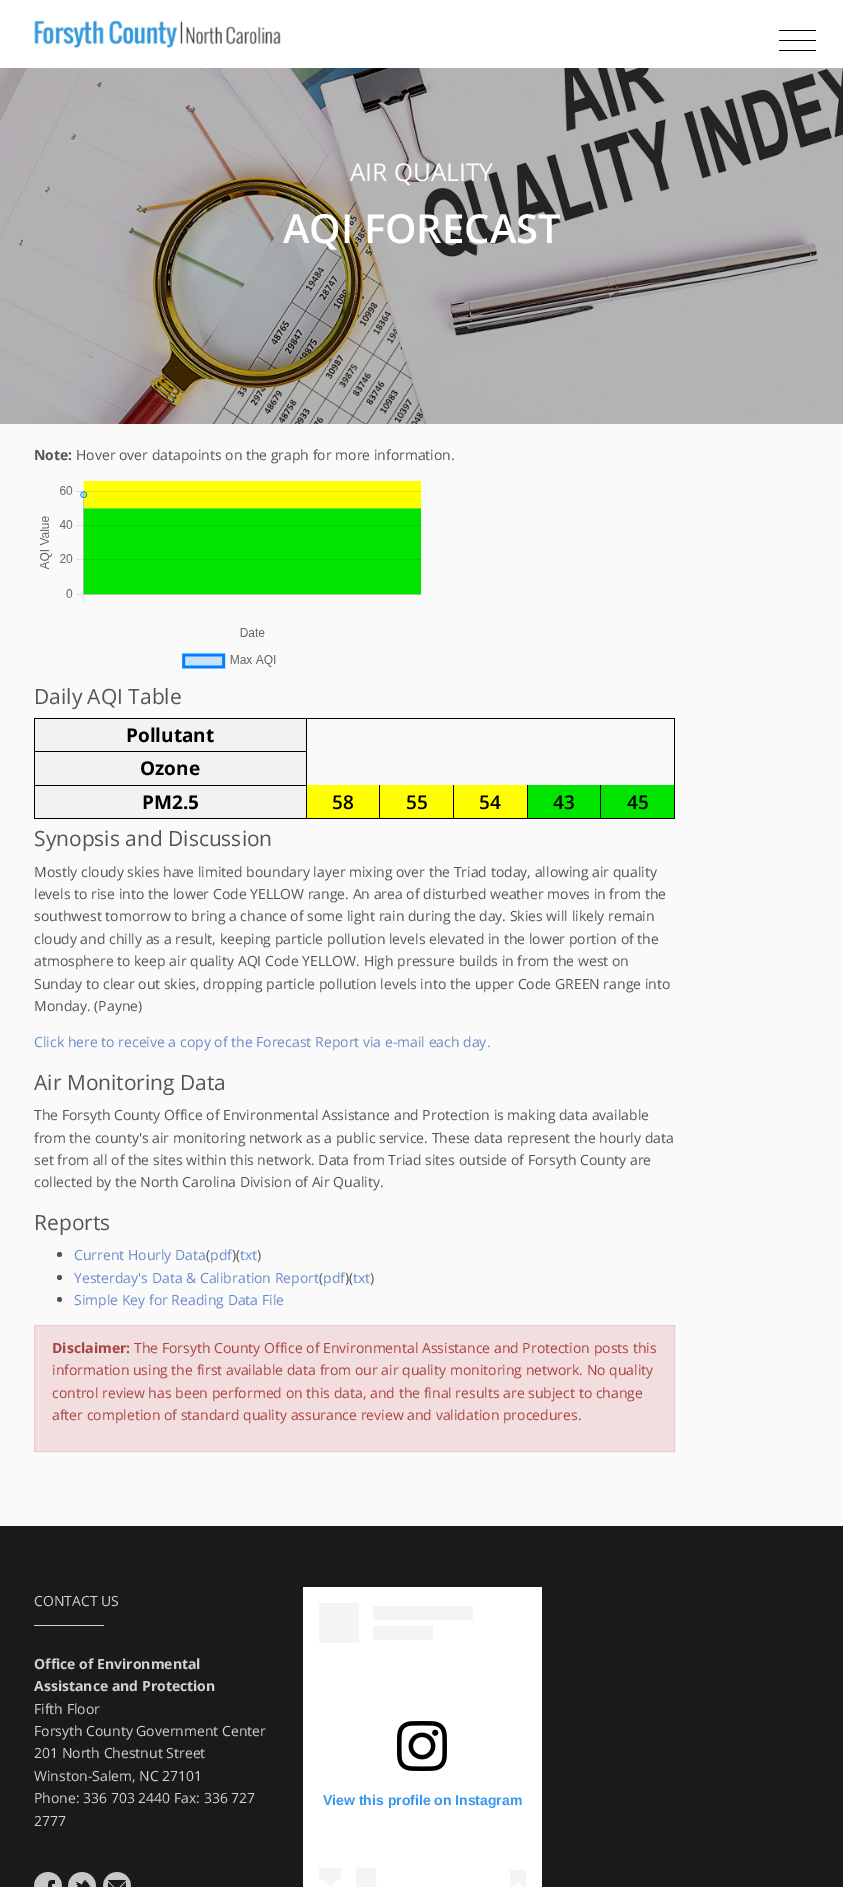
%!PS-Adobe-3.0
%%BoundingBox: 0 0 843 1887
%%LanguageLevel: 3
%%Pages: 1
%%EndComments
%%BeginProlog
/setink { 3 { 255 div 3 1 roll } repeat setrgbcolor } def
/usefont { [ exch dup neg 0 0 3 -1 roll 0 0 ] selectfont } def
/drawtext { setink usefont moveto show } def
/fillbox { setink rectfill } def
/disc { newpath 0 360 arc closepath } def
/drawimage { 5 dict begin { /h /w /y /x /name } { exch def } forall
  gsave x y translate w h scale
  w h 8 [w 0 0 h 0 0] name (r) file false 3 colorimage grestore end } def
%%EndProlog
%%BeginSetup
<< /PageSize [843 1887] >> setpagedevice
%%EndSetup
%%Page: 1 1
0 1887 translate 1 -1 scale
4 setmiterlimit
0 0 843 1887 250 250 250 fillbox
0 0 843 68 255 255 255 fillbox
(assets/img1.rgb) 34 20 247 28 drawimage
779 30 37 1 0 0 0 fillbox
779 40 37 1 0 0 0 fillbox
779 50 37 1 0 0 0 fillbox
(assets/img2.rgb) 0 68 843 356 drawimage
(AIR QUALITY) 350 181 /OpenSans-Regular 24.5 255 255 255 drawtext
(AQI FORECAST) 283 243 /OpenSans-SemiBold 40 255 255 255 drawtext
(Note:) 34 460 /OpenSans-Bold 14 85 85 85 drawtext
(Hover over datapoints on the graph for more information.) 76 460 /OpenSans-Regular 14 85 85 85 drawtext
(assets/img3.rgb) 40 481 382 188 drawimage
(Daily AQI Table) 34 704 /OpenSans-Regular 21 85 85 85 drawtext
34 718 641 1 0 0 0 fillbox
674 718 1 101 0 0 0 fillbox
34 818 641 1 0 0 0 fillbox
34 718 1 101 0 0 0 fillbox
35 719 271 32 242 242 242 fillbox
306 718 1 101 0 0 0 fillbox
34 751 273 1 0 0 0 fillbox
(Pollutant) 126 742 /OpenSans-Bold 19 0 0 0 drawtext
35 752 271 33 242 242 242 fillbox
34 785 273 1 0 0 0 fillbox
(Ozone) 140 775 /OpenSans-Bold 19 0 0 0 drawtext
35 786 271 32 242 242 242 fillbox
(PM2.5) 142 809 /OpenSans-Bold 19 0 0 0 drawtext
307 785 72 33 255 255 0 fillbox
379 785 1 34 0 0 0 fillbox
(58) 332 809 /OpenSans-SemiBold 19 0 0 0 drawtext
380 785 73 33 255 255 0 fillbox
453 785 1 34 0 0 0 fillbox
(55) 406 809 /OpenSans-SemiBold 19 0 0 0 drawtext
454 785 73 33 255 255 0 fillbox
527 785 1 34 0 0 0 fillbox
(54) 479 809 /OpenSans-SemiBold 19 0 0 0 drawtext
528 785 72 33 0 228 0 fillbox
600 785 1 34 0 0 0 fillbox
(43) 553 809 /OpenSans-SemiBold 19 0 0 0 drawtext
601 785 73 33 0 228 0 fillbox
(45) 627 809 /OpenSans-SemiBold 19 0 0 0 drawtext
(Synopsis and Discussion) 34 846 /OpenSans-Regular 21 85 85 85 drawtext
(Mostly cloudy skies have limited boundary layer mixing over the Triad today, allowing air quality) 34 877 /OpenSans-Regular 14 85 85 85 drawtext
(levels to rise into the lower Code YELLOW range. An area of disturbed weather moves in from the) 34 899 /OpenSans-Regular 14 85 85 85 drawtext
(southwest tomorrow to bring a chance of some light rain during the day. Skies will likely remain) 34 921 /OpenSans-Regular 14 85 85 85 drawtext
(cloudy and chilly as a result, keeping particle pollution levels elevated in the lower portion of the) 34 944 /OpenSans-Regular 14 85 85 85 drawtext
(atmosphere to keep air quality AQI Code YELLOW. High pressure builds in from the west on) 34 966 /OpenSans-Regular 14 85 85 85 drawtext
(Sunday to clear out skies, dropping particle pollution levels into the upper Code GREEN range into) 34 989 /OpenSans-Regular 14 85 85 85 drawtext
(Monday. \(Payne\)) 34 1011 /OpenSans-Regular 14 85 85 85 drawtext
(Click here to receive a copy of the Forecast Report via e-mail each day.) 34 1047 /OpenSans-Regular 14 108 138 200 drawtext
(Air Monitoring Data) 34 1090 /OpenSans-Regular 21 85 85 85 drawtext
(The Forsyth County Office of Environmental Assistance and Protection is making data available) 34 1120 /OpenSans-Regular 14 85 85 85 drawtext
(from the county's air monitoring network as a public service. These data represent the hourly data) 34 1143 /OpenSans-Regular 14 85 85 85 drawtext
(set from all of the sites within this network. Data from Triad sites outside of Forsyth County are) 34 1165 /OpenSans-Regular 14 85 85 85 drawtext
(collected by the North Carolina Division of Air Quality.) 34 1187 /OpenSans-Regular 14 85 85 85 drawtext
(Reports) 34 1230 /OpenSans-Regular 21 85 85 85 drawtext
59.5 1254.5 2.5 disc fill
(Current Hourly Data) 74 1260 /OpenSans-Regular 14 108 138 200 drawtext
(\() 206 1260 /OpenSans-Regular 14 85 85 85 drawtext
(pdf) 210 1260 /OpenSans-Regular 14 108 138 200 drawtext
(\)\() 232 1260 /OpenSans-Regular 14 85 85 85 drawtext
(txt) 240 1260 /OpenSans-Regular 14 108 138 200 drawtext
(\)) 257 1260 /OpenSans-Regular 14 85 85 85 drawtext
59.5 1277.5 2.5 disc fill
(Yesterday's Data & Calibration Report) 74 1283 /OpenSans-Regular 14 108 138 200 drawtext
(\() 319 1283 /OpenSans-Regular 14 85 85 85 drawtext
(pdf) 323 1283 /OpenSans-Regular 14 108 138 200 drawtext
(\)\() 345 1283 /OpenSans-Regular 14 85 85 85 drawtext
(txt) 353 1283 /OpenSans-Regular 14 108 138 200 drawtext
(\)) 370 1283 /OpenSans-Regular 14 85 85 85 drawtext
59.5 1299.5 2.5 disc fill
(Simple Key for Reading Data File) 74 1305 /OpenSans-Regular 14 108 138 200 drawtext
242 222 222 setink
34.5 1325.5 moveto 674.5 1325.5 lineto 674.5 1451.5 lineto 34.5 1451.5 lineto closepath gsave fill grestore
235 204 204 setink
stroke
(Disclaimer:) 52 1353 /OpenSans-Bold 14 169 68 66 drawtext
(The Forsyth County Office of Environmental Assistance and Protection posts this) 134 1353 /OpenSans-Regular 14 169 68 66 drawtext
(information using the first available data from our air quality monitoring network. No quality) 52 1375 /OpenSans-Regular 14 169 68 66 drawtext
(control review has been performed on this data, and the final results are subject to change) 52 1398 /OpenSans-Regular 14 169 68 66 drawtext
(after completion of standard quality assurance review and validation procedures.) 52 1420 /OpenSans-Regular 14 169 68 66 drawtext
0 1526 843 361 26 26 26 fillbox
(CONTACT US) 34 1606 /OpenSans-Regular 14 209 209 209 drawtext
34 1625 70 1 209 209 209 fillbox
(Office of Environmental) 34 1669 /OpenSans-Bold 14 209 209 209 drawtext
(Assistance and Protection) 34 1691 /OpenSans-Bold 14 209 209 209 drawtext
(Fifth Floor) 34 1714 /OpenSans-Regular 14 209 209 209 drawtext
(Forsyth County Government Center) 34 1736 /OpenSans-Regular 14 209 209 209 drawtext
(201 North Chestnut Street) 34 1758 /OpenSans-Regular 14 209 209 209 drawtext
(Winston-Salem, NC 27101) 34 1781 /OpenSans-Regular 14 209 209 209 drawtext
(Phone: 336 703 2440 Fax: 336 727) 34 1803 /OpenSans-Regular 14 209 209 209 drawtext
(2777) 34 1826 /OpenSans-Regular 14 209 209 209 drawtext
(assets/img4.rgb) 34 1872 28 15 drawimage
(assets/img5.rgb) 68 1872 28 15 drawimage
(assets/img6.rgb) 103 1872 28 15 drawimage
303 1587 239 300 255 255 255 fillbox
319 1603 40 40 244 244 244 fillbox
373 1606 100 14 244 244 244 fillbox
373 1626 60 14 244 244 244 fillbox
(assets/img7.rgb) 397 1721 50 50 drawimage
(View this profile on Instagram) 323 1805 /LiberationSans-Bold 14 56 151 240 drawtext
319 1868 9 12 244 244 244 fillbox
321.5 1878 moveto 330.5 1869.5 lineto 339 1878 lineto 330.5 1887 lineto closepath fill
328 1868 13 12 244 244 244 fillbox
356 1868 20 19 244 244 244 fillbox
371 1886 moveto 373 1882.5 lineto 377.5 1887 lineto closepath fill
510 1870 16 12 244 244 244 fillbox
510 1882 moveto 518 1882 lineto 510 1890 lineto closepath fill
518 1882 moveto 526 1882 lineto 526 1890 lineto closepath fill
showpage
%%EOF
